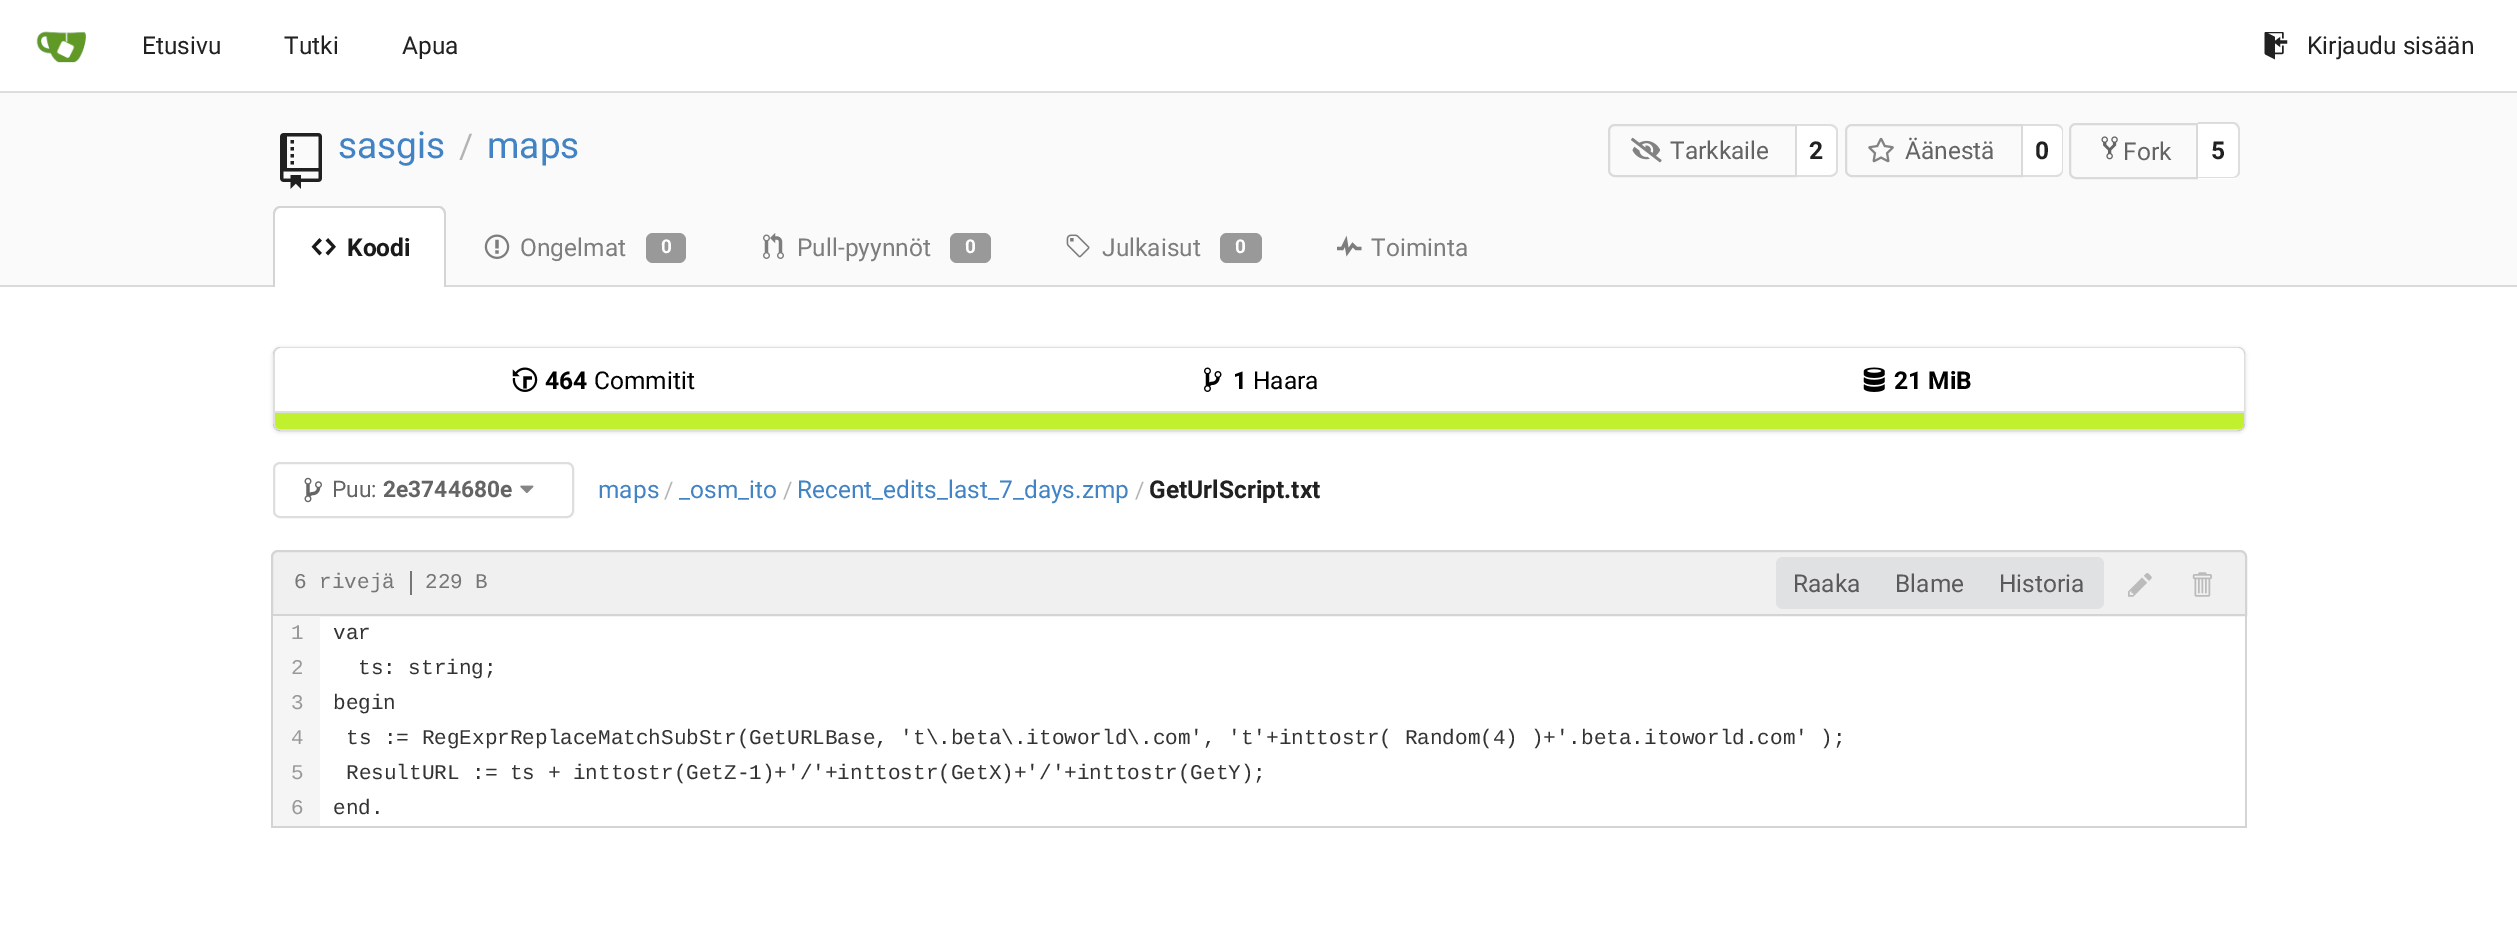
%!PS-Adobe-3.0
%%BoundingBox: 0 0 2517 948
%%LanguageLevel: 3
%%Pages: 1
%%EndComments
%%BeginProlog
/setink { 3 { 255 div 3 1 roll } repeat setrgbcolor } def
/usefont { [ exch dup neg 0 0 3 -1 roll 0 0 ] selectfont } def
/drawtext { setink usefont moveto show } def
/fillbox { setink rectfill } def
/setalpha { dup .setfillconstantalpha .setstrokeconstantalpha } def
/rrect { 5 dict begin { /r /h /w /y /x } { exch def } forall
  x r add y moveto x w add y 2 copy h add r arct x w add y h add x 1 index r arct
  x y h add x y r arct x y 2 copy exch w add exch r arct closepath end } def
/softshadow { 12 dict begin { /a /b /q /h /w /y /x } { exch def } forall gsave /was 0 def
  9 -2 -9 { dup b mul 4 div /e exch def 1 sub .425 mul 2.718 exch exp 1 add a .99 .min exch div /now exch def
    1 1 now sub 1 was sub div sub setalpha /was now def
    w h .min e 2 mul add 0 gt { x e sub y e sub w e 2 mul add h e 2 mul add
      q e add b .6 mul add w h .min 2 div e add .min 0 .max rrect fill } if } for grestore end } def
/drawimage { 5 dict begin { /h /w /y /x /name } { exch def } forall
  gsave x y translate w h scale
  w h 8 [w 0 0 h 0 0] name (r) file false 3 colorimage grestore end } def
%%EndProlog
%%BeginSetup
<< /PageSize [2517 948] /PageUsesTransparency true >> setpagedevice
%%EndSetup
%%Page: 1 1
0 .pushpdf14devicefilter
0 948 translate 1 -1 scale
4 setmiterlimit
0 0 2517 948 255 255 255 fillbox
0 91 2517 2 221 221 221 fillbox
(assets/img1.rgb) 36 31 50 32 drawimage
(Etusivu) 142 54 /Roboto-Regular 24.5 33 33 33 drawtext
(Tutki) 284 54 /Roboto-Regular 24.5 33 33 33 drawtext
(Apua) 402 54 /Roboto-Regular 24.5 33 33 33 drawtext
(assets/img2.rgb) 2264 32 24 28 drawimage
(Kirjaudu sisään) 2307 54 /Roboto-Regular 24.5 33 33 33 drawtext
0 93 2517 192 250 250 250 fillbox
(assets/img3.rgb) 280 133 42 56 drawimage
(sasgis) 338 158 /Roboto-Regular 37 65 131 196 drawtext
(/) 459 158 /Roboto-Regular 34 180 180 180 drawtext
(maps) 487 158 /Roboto-Regular 37 65 131 196 drawtext
218 218 218 setink
2 setlinewidth
1615 125 moveto 1796 125 lineto 1796 176 lineto 1615 176 lineto 1611.5 176 1609 173.5 1609 170 curveto 1609 131 lineto 1609 127.5 1611.5 125 1615 125 curveto closepath stroke
(assets/img4.rgb) 1631 137 31 26 drawimage
(Tarkkaile) 1670 159 /Roboto-Regular 24.5 100 100 100 drawtext
255 255 255 setink
1797 124 moveto 1831 124 lineto 1835 124 1838 127 1838 131 curveto 1838 170 lineto 1838 174 1835 177 1831 177 curveto 1797 177 lineto closepath fill
222 222 222 setink
1797 124 moveto 1830 124 lineto 1834 124 1838 127 1838 131 curveto 1838 170 lineto 1838 174 1834 177 1830 177 curveto 1797 177 lineto closepath 1797 126 moveto 1830 126 lineto 1833 126 1836 128 1836 131 curveto 1836 170 lineto 1836 173 1833 175 1830 175 curveto 1797 175 lineto closepath eofill
(2) 1809 159 /Roboto-Bold 24.5 33 33 33 drawtext
218 218 218 setink
1852 125 moveto 2022 125 lineto 2022 176 lineto 1852 176 lineto 1848.5 176 1846 173.5 1846 170 curveto 1846 131 lineto 1846 127.5 1848.5 125 1852 125 curveto closepath stroke
(assets/img5.rgb) 1868 137 26 26 drawimage
(Äänestä) 1905 159 /Roboto-Regular 24.5 100 100 100 drawtext
255 255 255 setink
2023 124 moveto 2056 124 lineto 2060 124 2063 127 2063 131 curveto 2063 170 lineto 2063 174 2060 177 2056 177 curveto 2023 177 lineto closepath fill
222 222 222 setink
2023 124 moveto 2056 124 lineto 2060 124 2063 127 2063 131 curveto 2063 170 lineto 2063 174 2060 177 2056 177 curveto 2023 177 lineto closepath 2023 126 moveto 2056 126 lineto 2059 126 2062 128 2062 131 curveto 2062 170 lineto 2062 173 2059 175 2056 175 curveto 2023 175 lineto closepath eofill
(0) 2035 159 /Roboto-Bold 24.5 33 33 33 drawtext
218 218 218 setink
2076 124 moveto 2197 124 lineto 2197 178 lineto 2076 178 lineto 2072.5 178 2070 175.5 2070 172 curveto 2070 130 lineto 2070 126.5 2072.5 124 2076 124 curveto closepath stroke
(assets/img6.rgb) 2101 136 17 24 drawimage
(Fork) 2123 160 /Roboto-Regular 24.5 100 100 100 drawtext
255 255 255 setink
2198 123 moveto 2233 123 lineto 2237 123 2240 126 2240 130 curveto 2240 172 lineto 2240 176 2237 179 2233 179 curveto 2198 179 lineto closepath fill
0.15 setalpha
34 36 38 setink
2198 122 moveto 2233 122 lineto 2237 122 2240 126 2240 130 curveto 2240 172 lineto 2240 175 2237 178 2233 178 curveto 2198 178 lineto closepath 2198 124 moveto 2233 124 lineto 2236 124 2238 127 2238 130 curveto 2238 172 lineto 2238 174 2236 177 2233 177 curveto 2198 177 lineto closepath eofill
1 setalpha
(5) 2211 159 /Roboto-Bold 24.5 33 33 33 drawtext
0 285 2517 2 218 218 218 fillbox
255 255 255 setink
280 207 moveto 439 207 lineto 443 207 446 210 446 214 curveto 446 287 lineto 273 287 lineto 273 214 lineto 273 210 276 207 280 207 curveto closepath fill
212 212 213 setink
280 206 moveto 439 206 lineto 443 206 446 210 446 214 curveto 446 287 lineto 273 287 lineto 273 214 lineto 273 210 276 206 280 206 curveto closepath 280 208 moveto 439 208 lineto 442 208 444 211 444 214 curveto 444 287 lineto 275 287 lineto 275 214 lineto 275 211 277 208 280 208 curveto closepath eofill
(assets/img7.rgb) 311 238 25 18 drawimage
(Koodi) 347 256 /Roboto-Bold 24.5 26 26 26 drawtext
(assets/img8.rgb) 484 234 26 25 drawimage
(Ongelmat) 520 256 /Roboto-Regular 24.5 125 125 125 drawtext
153 153 153 setink
646 233 40 30 7 rrect fill
(0) 661 253 /Roboto-Bold 19 255 255 255 drawtext
(assets/img9.rgb) 763 233 21 26 drawimage
(Pull-pyynnöt) 797 256 /Roboto-Regular 24.5 125 125 125 drawtext
153 153 153 setink
950 233 41 30 7 rrect fill
(0) 965 253 /Roboto-Bold 19 255 255 255 drawtext
(assets/img10.rgb) 1066 234 24 24 drawimage
(Julkaisut) 1102 256 /Roboto-Regular 24.5 125 125 125 drawtext
153 153 153 setink
1220 233 42 30 7 rrect fill
(0) 1235 253 /Roboto-Bold 19 255 255 255 drawtext
(assets/img11.rgb) 1337 235 25 22 drawimage
(Toiminta) 1371 256 /Roboto-Regular 24.5 125 125 125 drawtext
gsave
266 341 moveto 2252 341 lineto 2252 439 lineto 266 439 lineto closepath 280 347 moveto 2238 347 lineto 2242 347 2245 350 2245 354 curveto 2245 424 lineto 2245 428 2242 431 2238 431 curveto 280 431 lineto 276 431 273 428 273 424 curveto 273 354 lineto 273 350 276 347 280 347 curveto closepath eoclip newpath
34 36 38 setink
273 348 1972 84 7 2 0.15 softshadow
grestore
0.15 setalpha
34 36 38 setink
274 348 1970 82 6 rrect stroke
1 setalpha
255 255 255 setink
282 348 moveto 2237 348 lineto 2241 348 2244 351 2244 355 curveto 2244 411 lineto 275 411 lineto 275 355 lineto 275 351 278 348 282 348 curveto closepath fill
(assets/img12.rgb) 512 367 26 25 drawimage
(464) 545 389 /Roboto-Bold 24.5 0 0 0 drawtext
(Commitit) 594 389 /Roboto-Regular 24.5 0 0 0 drawtext
(assets/img13.rgb) 1204 367 18 25 drawimage
(1) 1233 389 /Roboto-Bold 24.5 0 0 0 drawtext
(Haara) 1253 389 /Roboto-Regular 24.5 0 0 0 drawtext
(assets/img14.rgb) 1863 367 22 25 drawimage
(21 MiB) 1894 389 /Roboto-Bold 24.5 0 0 0 drawtext
275 411 1969 2 222 222 222 fillbox
193 241 46 setink
275 413 moveto 2244 413 lineto 2244 424 lineto 2244 427 2242 429 2239 429 curveto 280 429 lineto 277 429 275 427 275 424 curveto closepath fill
222 222 222 setink
274 463 299 54 6 rrect stroke
(assets/img15.rgb) 304 477 18 26 drawimage
(Puu:) 332 497 /Roboto-Regular 22.75 100 100 100 drawtext
(2e3744680e) 383 497 /Roboto-Bold 22.75 100 100 100 drawtext
(assets/img16.rgb) 520 485 14 8 drawimage
(maps) 598 498 /Roboto-Regular 24.5 65 131 196 drawtext
(/) 664 498 /Roboto-Regular 22.75 180 180 180 drawtext
(_osm_ito) 679 498 /Roboto-Regular 24.5 65 131 196 drawtext
(/) 783 498 /Roboto-Regular 22.75 180 180 180 drawtext
(Recent_edits_last_7_days.zmp) 797 498 /Roboto-Regular 24.5 65 131 196 drawtext
(/) 1135 498 /Roboto-Regular 22.75 180 180 180 drawtext
(GetUrlScript.txt) 1149 498 /Roboto-Bold 24.5 33 33 33 drawtext
240 240 240 setink
278 551 moveto 2240 551 lineto 2243.5 551 2246 553.5 2246 557 curveto 2246 615 lineto 272 615 lineto 272 557 lineto 272 553.5 274.5 551 278 551 curveto closepath gsave fill grestore
212 212 213 setink
stroke
(6 rivejä) 294 588 /LiberationMono-Regular 21 118 118 118 drawtext
410 571 2 24 118 118 118 fillbox
(229 B) 425 588 /LiberationMono-Regular 21 118 118 118 drawtext
224 225 226 setink
1783 557 moveto 1878 557 lineto 1878 609 lineto 1783 609 lineto 1779 609 1776 606 1776 602 curveto 1776 564 lineto 1776 560 1779 557 1783 557 curveto closepath fill
(Raaka) 1793 592 /Roboto-Regular 24.5 90 90 90 drawtext
1878 557 105 52 224 225 226 fillbox
(Blame) 1895 592 /Roboto-Regular 24.5 90 90 90 drawtext
224 225 226 setink
1983 557 moveto 2097 557 lineto 2101 557 2104 560 2104 564 curveto 2104 602 lineto 2104 606 2101 609 2097 609 curveto 1983 609 lineto closepath fill
(Historia) 1999 592 /Roboto-Regular 24.5 90 90 90 drawtext
(assets/img17.rgb) 2128 573 24 24 drawimage
(assets/img18.rgb) 2192 572 20 25 drawimage
2245 616 2 212 212 212 213 fillbox
271 826 1976 2 212 212 213 fillbox
271 616 2 212 212 212 213 fillbox
273 616 47 210 245 245 245 fillbox
(1) 291 639 /LiberationMono-Regular 21 153 153 153 drawtext
(2) 291 674 /LiberationMono-Regular 21 153 153 153 drawtext
(3) 291 709 /LiberationMono-Regular 21 153 153 153 drawtext
(4) 291 744 /LiberationMono-Regular 21 153 153 153 drawtext
(5) 291 779 /LiberationMono-Regular 21 153 153 153 drawtext
(6) 291 814 /LiberationMono-Regular 21 153 153 153 drawtext
(var) 333 639 /LiberationMono-Regular 21 51 51 51 drawtext
(ts: string;) 358 674 /LiberationMono-Regular 21 51 51 51 drawtext
(begin) 333 709 /LiberationMono-Regular 21 51 51 51 drawtext
(ts := RegExprReplaceMatchSubStr\(GetURLBase, 't\\.beta\\.itoworld\\.com', 't'+inttostr\( Random\(4\) \)+'.beta.itoworld.com' \);) 346 744 /LiberationMono-Regular 21 51 51 51 drawtext
(ResultURL := ts + inttostr\(GetZ-1\)+'/'+inttostr\(GetX\)+'/'+inttostr\(GetY\);) 346 779 /LiberationMono-Regular 21 51 51 51 drawtext
(end.) 333 814 /LiberationMono-Regular 21 51 51 51 drawtext
.poppdf14devicefilter showpage
%%EOF
